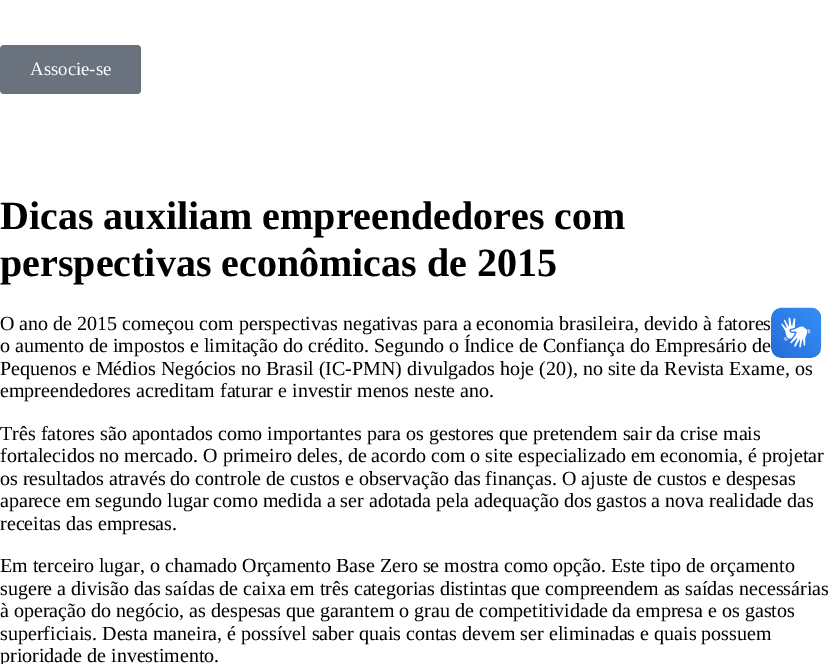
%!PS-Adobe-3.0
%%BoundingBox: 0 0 833 664
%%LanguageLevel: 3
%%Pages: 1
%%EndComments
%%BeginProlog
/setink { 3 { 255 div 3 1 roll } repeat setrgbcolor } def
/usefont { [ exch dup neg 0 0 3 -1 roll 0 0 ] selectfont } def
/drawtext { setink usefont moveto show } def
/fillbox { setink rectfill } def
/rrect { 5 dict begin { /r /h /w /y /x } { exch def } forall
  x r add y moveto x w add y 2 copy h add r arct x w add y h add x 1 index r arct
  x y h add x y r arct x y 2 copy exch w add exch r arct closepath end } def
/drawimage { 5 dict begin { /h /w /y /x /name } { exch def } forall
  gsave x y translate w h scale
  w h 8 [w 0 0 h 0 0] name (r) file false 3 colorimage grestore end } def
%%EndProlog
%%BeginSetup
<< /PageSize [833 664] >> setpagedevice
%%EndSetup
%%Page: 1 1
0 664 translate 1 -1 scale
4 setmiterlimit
0 0 833 664 255 255 255 fillbox
105 114 125 setink
0 45 141 49 4 rrect fill
(Associe-se) 30 75 /LiberationSerif-Regular 18.75 255 255 255 drawtext
(Dicas auxiliam empreendedores com) 0 229 /LiberationSerif-Bold 40 0 0 0 drawtext
(perspectivas econômicas de 2015) 0 276 /LiberationSerif-Bold 40 0 0 0 drawtext
(O ano de 2015 começou com perspectivas negativas para a economia brasileira, devido à fatores) 0 330 /LiberationSerif-Regular 20 0 0 0 drawtext
(o aumento de impostos e limitação do crédito. Segundo o Índice de Confiança do Empresário de) 0 352 /LiberationSerif-Regular 20 0 0 0 drawtext
(Pequenos e Médios Negócios no Brasil \(IC-PMN\) divulgados hoje \(20\), no site da Revista Exame, os) 0 375 /LiberationSerif-Regular 20 0 0 0 drawtext
(empreendedores acreditam faturar e investir menos neste ano.) 0 397 /LiberationSerif-Regular 20 0 0 0 drawtext
(Três fatores são apontados como importantes para os gestores que pretendem sair da crise mais) 0 440 /LiberationSerif-Regular 20 0 0 0 drawtext
(fortalecidos no mercado. O primeiro deles, de acordo com o site especializado em economia, é projetar) 0 462 /LiberationSerif-Regular 20 0 0 0 drawtext
(os resultados através do controle de custos e observação das finanças. O ajuste de custos e despesas) 0 485 /LiberationSerif-Regular 20 0 0 0 drawtext
(aparece em segundo lugar como medida a ser adotada pela adequação dos gastos a nova realidade das) 0 507 /LiberationSerif-Regular 20 0 0 0 drawtext
(receitas das empresas.) 0 530 /LiberationSerif-Regular 20 0 0 0 drawtext
(Em terceiro lugar, o chamado Orçamento Base Zero se mostra como opção. Este tipo de orçamento) 0 572 /LiberationSerif-Regular 20 0 0 0 drawtext
(sugere a divisão das saídas de caixa em três categorias distintas que compreendem as saídas necessárias) 0 595 /LiberationSerif-Regular 20 0 0 0 drawtext
(à operação do negócio, as despesas que garantem o grau de competitividade da empresa e os gastos) 0 617 /LiberationSerif-Regular 20 0 0 0 drawtext
(superficiais. Desta maneira, é possível saber quais contas devem ser eliminadas e quais possuem) 0 640 /LiberationSerif-Regular 20 0 0 0 drawtext
(prioridade de investimento.) 0 662 /LiberationSerif-Regular 20 0 0 0 drawtext
(assets/img1.rgb) 771 307 51 51 drawimage
(assets/img2.rgb) 771 308 50 50 drawimage
showpage
%%EOF
